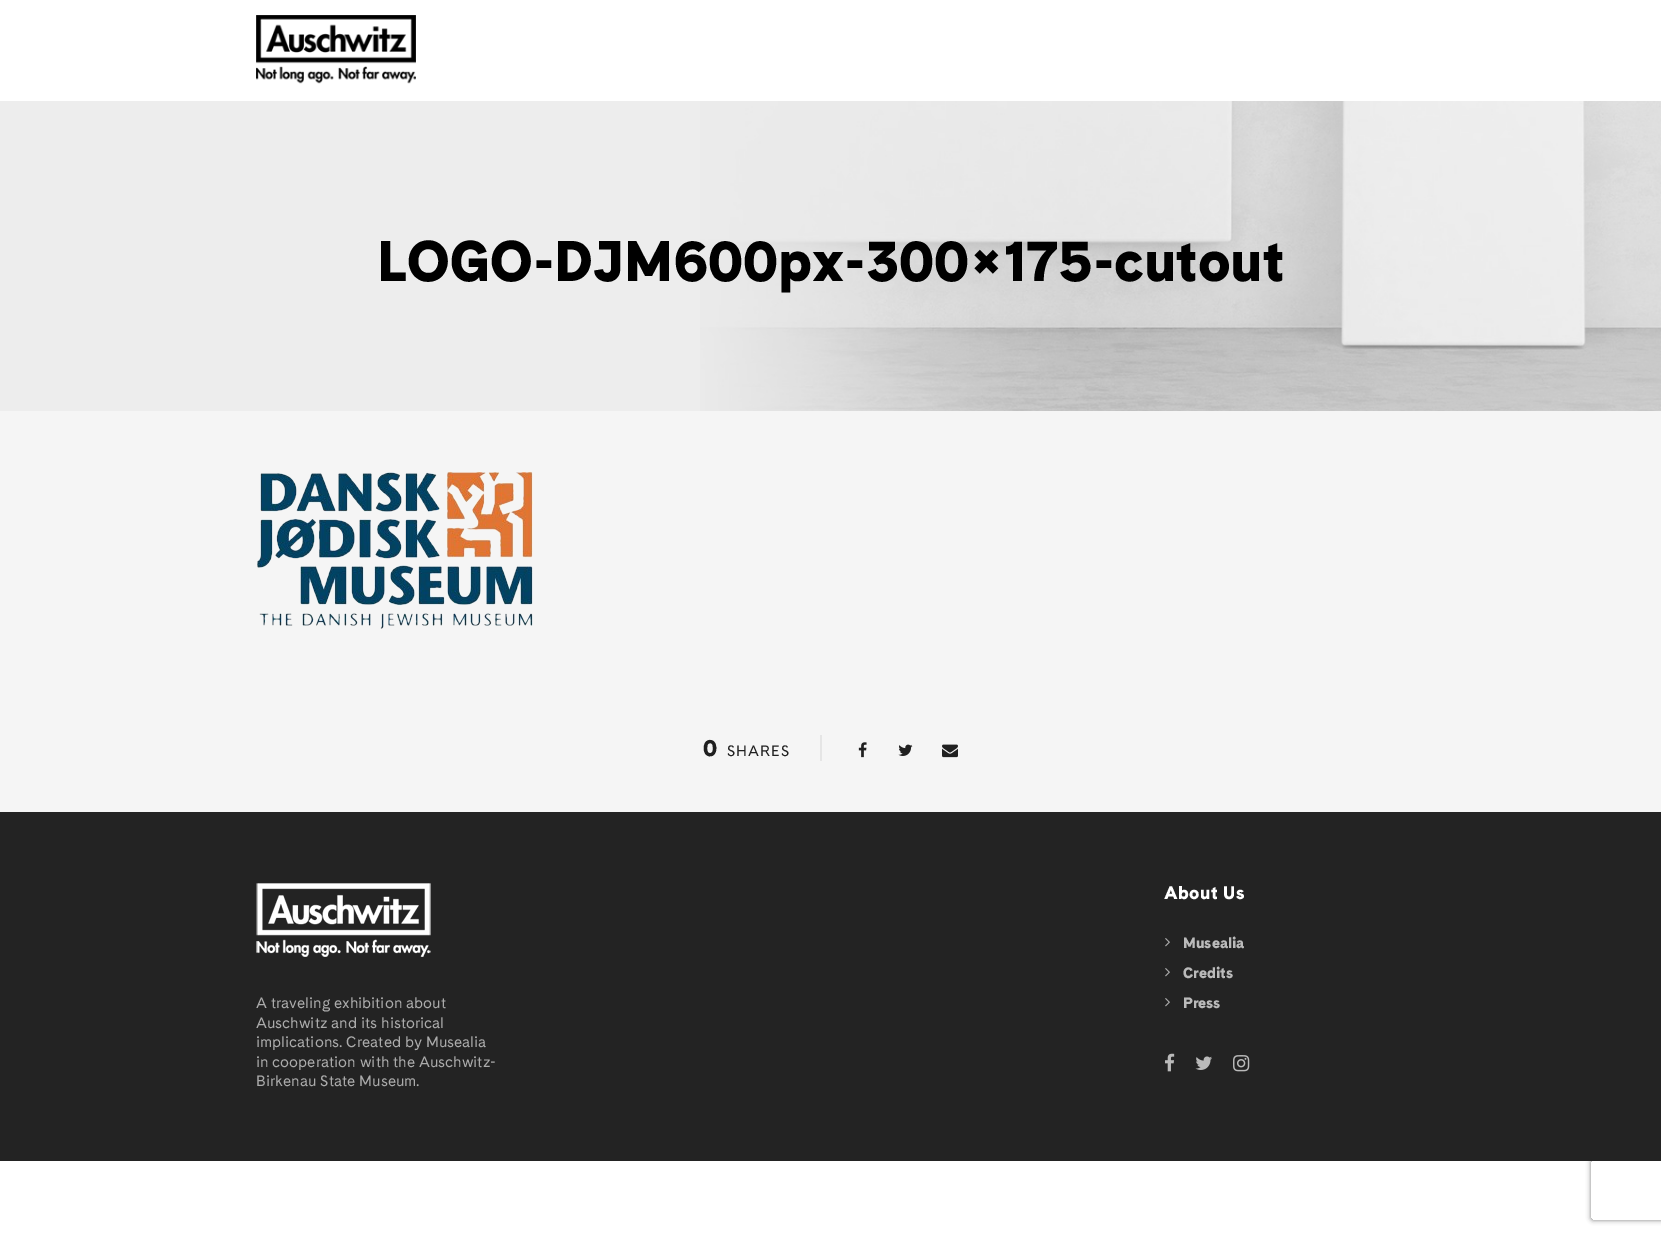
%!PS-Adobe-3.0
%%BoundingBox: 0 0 1661 1234
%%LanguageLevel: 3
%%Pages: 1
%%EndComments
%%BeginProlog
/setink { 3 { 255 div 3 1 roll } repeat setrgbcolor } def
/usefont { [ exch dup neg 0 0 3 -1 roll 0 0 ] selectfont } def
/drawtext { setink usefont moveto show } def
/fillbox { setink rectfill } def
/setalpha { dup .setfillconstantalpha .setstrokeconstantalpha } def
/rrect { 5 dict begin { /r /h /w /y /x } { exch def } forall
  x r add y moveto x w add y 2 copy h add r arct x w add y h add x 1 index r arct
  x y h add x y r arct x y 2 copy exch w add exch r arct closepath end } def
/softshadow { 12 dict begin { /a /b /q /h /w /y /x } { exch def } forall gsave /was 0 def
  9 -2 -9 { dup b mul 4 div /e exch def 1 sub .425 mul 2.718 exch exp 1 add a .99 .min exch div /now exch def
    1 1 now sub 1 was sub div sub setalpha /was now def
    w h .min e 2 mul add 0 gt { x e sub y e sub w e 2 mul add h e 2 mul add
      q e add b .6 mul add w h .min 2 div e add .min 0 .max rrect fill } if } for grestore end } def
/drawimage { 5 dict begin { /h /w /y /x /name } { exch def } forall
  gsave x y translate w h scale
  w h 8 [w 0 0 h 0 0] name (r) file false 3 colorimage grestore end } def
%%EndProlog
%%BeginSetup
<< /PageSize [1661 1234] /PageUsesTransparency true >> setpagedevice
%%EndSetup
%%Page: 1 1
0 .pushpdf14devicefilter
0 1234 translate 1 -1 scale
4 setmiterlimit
0 0 1661 1234 255 255 255 fillbox
0 411 1661 401 245 245 245 fillbox
0 101 700 310 237 237 237 fillbox
(assets/img1.rgb) 256 15 160 69 drawimage
(assets/img2.rgb) 700 101 961 310 drawimage
(LOGO-DJM600px-300×175-cutout) 377 281 /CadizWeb-Black 57 0 0 0 drawtext
(assets/img3.rgb) 257 471 277 158 drawimage
(0) 703 756 /CadizWeb-Black 23 32 32 32 drawtext
/CadizWeb-Regular 15 usefont
727 756 moveto 1 0 (SHARES) ashow
820 735 2 26 229 229 229 fillbox
(assets/img4.rgb) 858 742 9 16 drawimage
(assets/img5.rgb) 898 744 15 12 drawimage
(assets/img6.rgb) 942 744 16 14 drawimage
gsave
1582 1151 moveto 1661 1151 lineto 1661 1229 lineto 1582 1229 lineto closepath 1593 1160 moveto 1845 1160 lineto 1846 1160 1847 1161 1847 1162 curveto 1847 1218 lineto 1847 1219 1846 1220 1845 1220 curveto 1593 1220 lineto 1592 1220 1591 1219 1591 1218 curveto 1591 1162 lineto 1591 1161 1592 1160 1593 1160 curveto closepath eoclip newpath
128 128 128 setink
1591 1160 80 60 2 2.5 1 softshadow
grestore
0 812 1661 349 35 35 35 fillbox
/CadizWeb-Black 18 usefont
255 255 255 setink
1164 899 moveto 0.5 0 (About Us) ashow
(assets/img7.rgb) 1165 938 5 9 drawimage
(Musealia) 1183 948 /CadizWeb-Black 15 186 186 186 drawtext
(assets/img7.rgb) 1165 968 5 9 drawimage
(Credits) 1183 978 /CadizWeb-Black 15 186 186 186 drawtext
(assets/img7.rgb) 1165 998 5 9 drawimage
(Press) 1183 1008 /CadizWeb-Black 15 186 186 186 drawtext
(assets/img8.rgb) 1165 1053 10 19 drawimage
(assets/img9.rgb) 1195 1056 17 14 drawimage
(assets/img10.rgb) 1233 1055 17 17 drawimage
(assets/img11.rgb) 256 883 175 74 drawimage
(A traveling exhibition about) 256 1008 /CadizWeb-Regular 15 171 171 171 drawtext
(Auschwitz and its historical) 256 1028 /CadizWeb-Regular 15 171 171 171 drawtext
(implications. Created by Musealia) 256 1047 /CadizWeb-Regular 15 171 171 171 drawtext
(in cooperation with the Auschwitz-) 256 1067 /CadizWeb-Regular 15 171 171 171 drawtext
(Birkenau State Museum.) 256 1086 /CadizWeb-Regular 15 171 171 171 drawtext
.poppdf14devicefilter showpage
%%EOF
